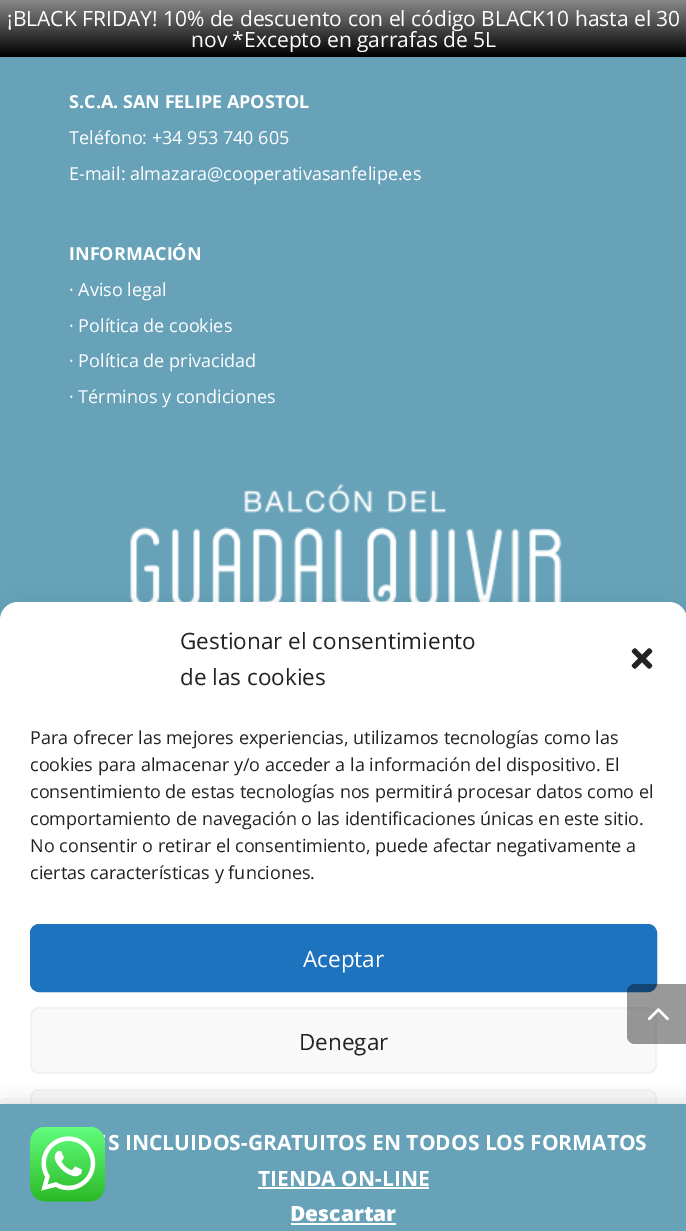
%!PS-Adobe-3.0
%%BoundingBox: 0 0 686 1231
%%LanguageLevel: 3
%%Pages: 1
%%EndComments
%%BeginProlog
/setink { 3 { 255 div 3 1 roll } repeat setrgbcolor } def
/usefont { [ exch dup neg 0 0 3 -1 roll 0 0 ] selectfont } def
/drawtext { setink usefont moveto show } def
/fillbox { setink rectfill } def
/setalpha { dup .setfillconstantalpha .setstrokeconstantalpha } def
/rrect { 5 dict begin { /r /h /w /y /x } { exch def } forall
  x r add y moveto x w add y 2 copy h add r arct x w add y h add x 1 index r arct
  x y h add x y r arct x y 2 copy exch w add exch r arct closepath end } def
/softshadow { 12 dict begin { /a /b /q /h /w /y /x } { exch def } forall gsave /was 0 def
  9 -2 -9 { dup b mul 4 div /e exch def 1 sub .425 mul 2.718 exch exp 1 add a .99 .min exch div /now exch def
    1 1 now sub 1 was sub div sub setalpha /was now def
    w h .min e 2 mul add 0 gt { x e sub y e sub w e 2 mul add h e 2 mul add
      q e add b .6 mul add w h .min 2 div e add .min 0 .max rrect fill } if } for grestore end } def
/drawimage { 5 dict begin { /h /w /y /x /name } { exch def } forall
  gsave x y translate w h scale
  w h 8 [w 0 0 h 0 0] name (r) file false 3 colorimage grestore end } def
%%EndProlog
%%BeginSetup
<< /PageSize [686 1231] /PageUsesTransparency true >> setpagedevice
%%EndSetup
%%Page: 1 1
0 .pushpdf14devicefilter
0 1231 translate 1 -1 scale
4 setmiterlimit
0 0 686 1231 103 162 185 fillbox
gsave 0 0 moveto 686 0 lineto 686 57 lineto 0 57 lineto closepath clip newpath
<< /ShadingType 2 /ColorSpace /DeviceRGB /Coords [344 0 344 57] /Extend [true true] /Function << /FunctionType 2 /Domain [0 1] /C0 [0.533 0.533 0.533] /C1 [0 0 0] /N 1 >> >> shfill grestore
(¡BLACK FRIDAY! 10% de descuento con el código BLACK10 hasta el 30) 7 26 /OpenSans-Regular 21 255 255 255 drawtext
(nov *Excepto en garrafas de 5L) 191 47 /OpenSans-Regular 21 255 255 255 drawtext
(S.C.A. SAN FELIPE APOSTOL) 69 108 /OpenSans-Bold 18 255 255 255 drawtext
(Teléfono: +34 953 740 605) 69 144 /OpenSans-Regular 18 255 255 255 drawtext
(E-mail: almazara@cooperativasanfelipe.es) 69 180 /OpenSans-Regular 18 255 255 255 drawtext
(INFORMACIÓN) 69 260 /OpenSans-Bold 18 255 255 255 drawtext
(· Aviso legal) 69 296 /OpenSans-Regular 18 255 255 255 drawtext
(· Política de cookies) 69 332 /OpenSans-Regular 18 255 255 255 drawtext
(· Política de privacidad) 69 367 /OpenSans-Regular 18 255 255 255 drawtext
(· Términos y condiciones) 69 403 /OpenSans-Regular 18 255 255 255 drawtext
(assets/img1.rgb) 130 483 432 119 drawimage
0 0 0 setink
0 611 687 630 18 4.5 0.23 softshadow
0 617 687 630 18 15 0.19 softshadow
255 255 255 setink
0 602 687 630 18 rrect fill
(Gestionar el consentimiento) 180 649 /OpenSans-Regular 22.5 34 34 34 drawtext
(de las cookies) 180 685 /OpenSans-Regular 22.5 34 34 34 drawtext
(assets/img2.rgb) 631 648 22 21 drawimage
(Para ofrecer las mejores experiencias, utilizamos tecnologías como las) 30 744 /OpenSans-Regular 18 34 34 34 drawtext
(cookies para almacenar y/o acceder a la información del dispositivo. El) 30 771 /OpenSans-Regular 18 34 34 34 drawtext
(consentimiento de estas tecnologías nos permitirá procesar datos como el) 30 798 /OpenSans-Regular 18 34 34 34 drawtext
(comportamiento de navegación o las identificaciones únicas en este sitio.) 30 825 /OpenSans-Regular 18 34 34 34 drawtext
(No consentir o retirar el consentimiento, puede afectar negativamente a) 30 852 /OpenSans-Regular 18 34 34 34 drawtext
(ciertas características y funciones.) 30 879 /OpenSans-Regular 18 34 34 34 drawtext
30 115 190 setink
31 925 625 66 8 rrect gsave fill grestore
2 setlinewidth
stroke
(Aceptar) 303 967 /OpenSans-Regular 22.5 255 255 255 drawtext
249 249 249 setink
31 1008 625 65 8 rrect gsave fill grestore
242 242 242 setink
stroke
(Denegar) 299 1050 /OpenSans-Regular 22.5 34 34 34 drawtext
249 249 249 setink
31 1090 625 66 8 rrect gsave fill grestore
242 242 242 setink
stroke
0.4 setalpha
0 0 0 setink
635 984 moveto 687 984 lineto 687 1044 lineto 635 1044 lineto 630.5 1044 627 1040.5 627 1036 curveto 627 992 lineto 627 987.5 630.5 984 635 984 curveto closepath fill
1 setalpha
(assets/img3.rgb) 647 1008 22 13 drawimage
0 1106 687 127 0 10.5 0.2 softshadow
0 1104 686 127 103 162 185 fillbox
(assets/img4.rgb) 30 1127 75 75 drawimage
(S INCLUIDOS-GRATUITOS EN TODOS LOS FORMATOS) 108 1150 /OpenSans-Bold 21 255 255 255 drawtext
(TIENDA ON-LINE) 258 1186 /OpenSans-Bold 21 255 255 255 drawtext
258 1187 171 2 255 255 255 fillbox
(Descartar) 290 1221 /OpenSans-ExtraBold 21 255 255 255 drawtext
291 1223 105 2 255 255 255 fillbox
.poppdf14devicefilter showpage
%%EOF
